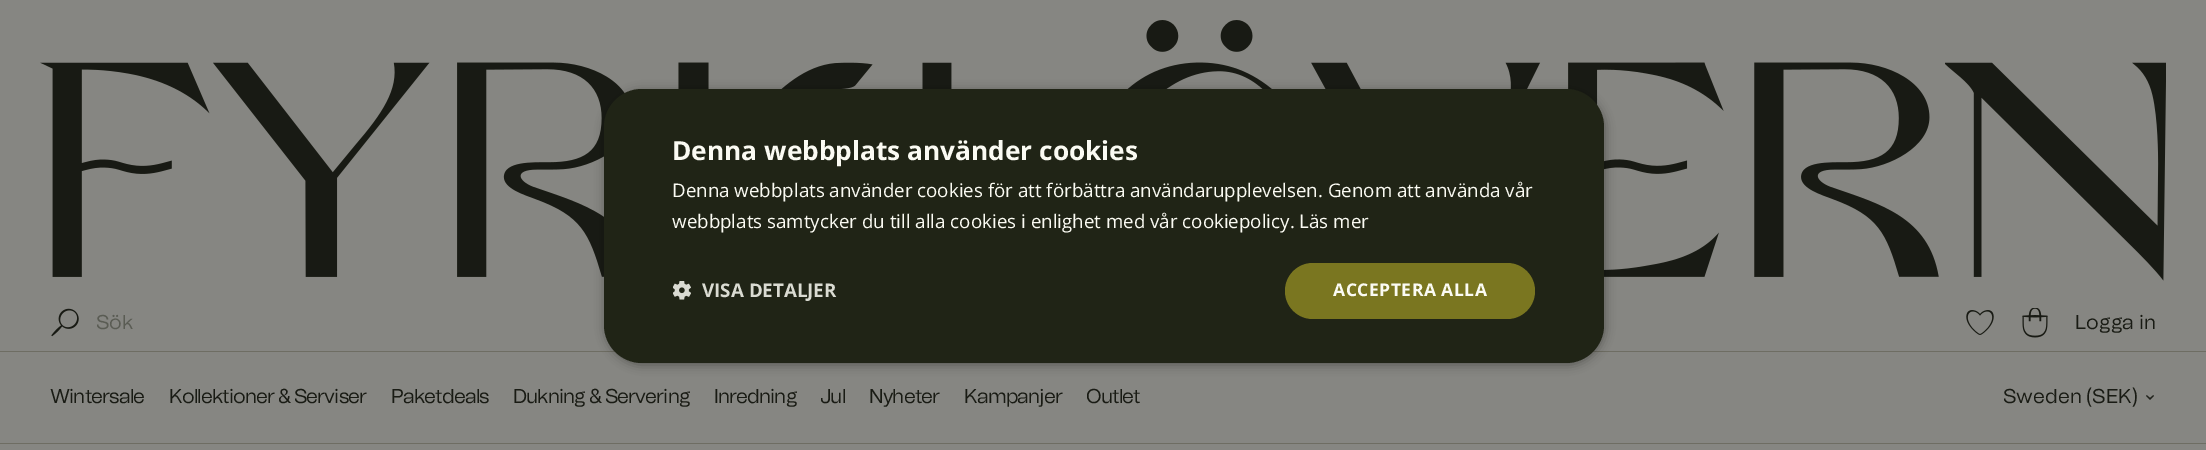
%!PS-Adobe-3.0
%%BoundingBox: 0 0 2206 450
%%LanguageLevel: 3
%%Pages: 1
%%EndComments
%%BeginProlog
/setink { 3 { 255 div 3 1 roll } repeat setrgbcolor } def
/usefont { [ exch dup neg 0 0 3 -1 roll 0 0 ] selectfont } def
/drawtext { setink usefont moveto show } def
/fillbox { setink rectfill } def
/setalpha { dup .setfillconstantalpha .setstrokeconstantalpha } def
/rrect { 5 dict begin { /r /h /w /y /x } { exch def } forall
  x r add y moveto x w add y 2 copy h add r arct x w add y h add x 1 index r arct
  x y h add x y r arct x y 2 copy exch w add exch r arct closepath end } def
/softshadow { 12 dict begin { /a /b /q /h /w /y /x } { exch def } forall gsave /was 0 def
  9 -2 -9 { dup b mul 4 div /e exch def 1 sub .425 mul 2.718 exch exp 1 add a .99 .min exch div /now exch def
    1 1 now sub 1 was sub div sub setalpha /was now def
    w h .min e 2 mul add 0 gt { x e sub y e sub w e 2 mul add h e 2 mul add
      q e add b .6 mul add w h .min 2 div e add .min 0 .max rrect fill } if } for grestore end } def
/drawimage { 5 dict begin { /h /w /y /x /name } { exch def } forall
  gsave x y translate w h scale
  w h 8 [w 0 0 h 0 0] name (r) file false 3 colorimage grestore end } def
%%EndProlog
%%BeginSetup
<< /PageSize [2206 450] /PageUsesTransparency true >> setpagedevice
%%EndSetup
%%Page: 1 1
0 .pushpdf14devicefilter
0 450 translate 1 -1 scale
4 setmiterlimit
0 0 2206 450 134 134 130 fillbox
(assets/img2.rgb) 40 20 2126 261 drawimage
0 351 2206 1 110 109 99 fillbox
0 0 0 setink
605 91 1000 274 38 5 0.35 softshadow
32 36 22 setink
604 89 1000 274 38 rrect fill
(Denna webbplats använder cookies) 672 160 /OpenSans-Bold 26.25 251 251 243 drawtext
(Denna webbplats använder cookies för att förbättra användarupplevelsen. Genom att använda vår) 672 197 /OpenSans-Regular 18.75 251 251 243 drawtext
(webbplats samtycker du till alla cookies i enlighet med vår cookiepolicy. Läs mer) 672 228 /OpenSans-Regular 18.75 251 251 243 drawtext
(assets/img1.rgb) 673 281 18 19 drawimage
(VISA DETALJER) 702 297 /OpenSans-Bold 18.75 218 219 210 drawtext
122 118 32 setink
1285 263 250 56 28 rrect fill
/OpenSans-Bold 17.5 usefont
251 251 243 setink
1333 296 moveto 0.5 0 (ACCEPTERA ALLA) ashow
(assets/img3.rgb) 51 308 28 29 drawimage
(Sök) 96 329 /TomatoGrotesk-Regular 20 90 92 84 drawtext
(assets/img4.rgb) 1966 310 28 25 drawimage
(assets/img5.rgb) 2022 308 26 30 drawimage
(Logga in) 2075 329 /TomatoGrotesk-Regular 20 25 27 20 drawtext
0 443 2206 1 110 109 99 fillbox
25 27 20 setink
50 403 moveto -0.9 0 (Wintersale) ashow
169 403 moveto -0.9 0 (Kollektioner & Serviser) ashow
391 403 moveto -0.9 0 (Paketdeals) ashow
513 403 moveto -0.9 0 (Dukning & Servering) ashow
714 403 moveto -0.9 0 (Inredning) ashow
820 403 moveto -0.9 0 (Jul) ashow
869 403 moveto -0.9 0 (Nyheter) ashow
964 403 moveto -0.9 0 (Kampanjer) ashow
1086 403 moveto -0.9 0 (Outlet) ashow
(Sweden \(SEK\)) 2003 403 /TomatoGrotesk-Regular 20 25 27 20 drawtext
(assets/img6.rgb) 2146 395 8 5 drawimage
.poppdf14devicefilter showpage
%%EOF
